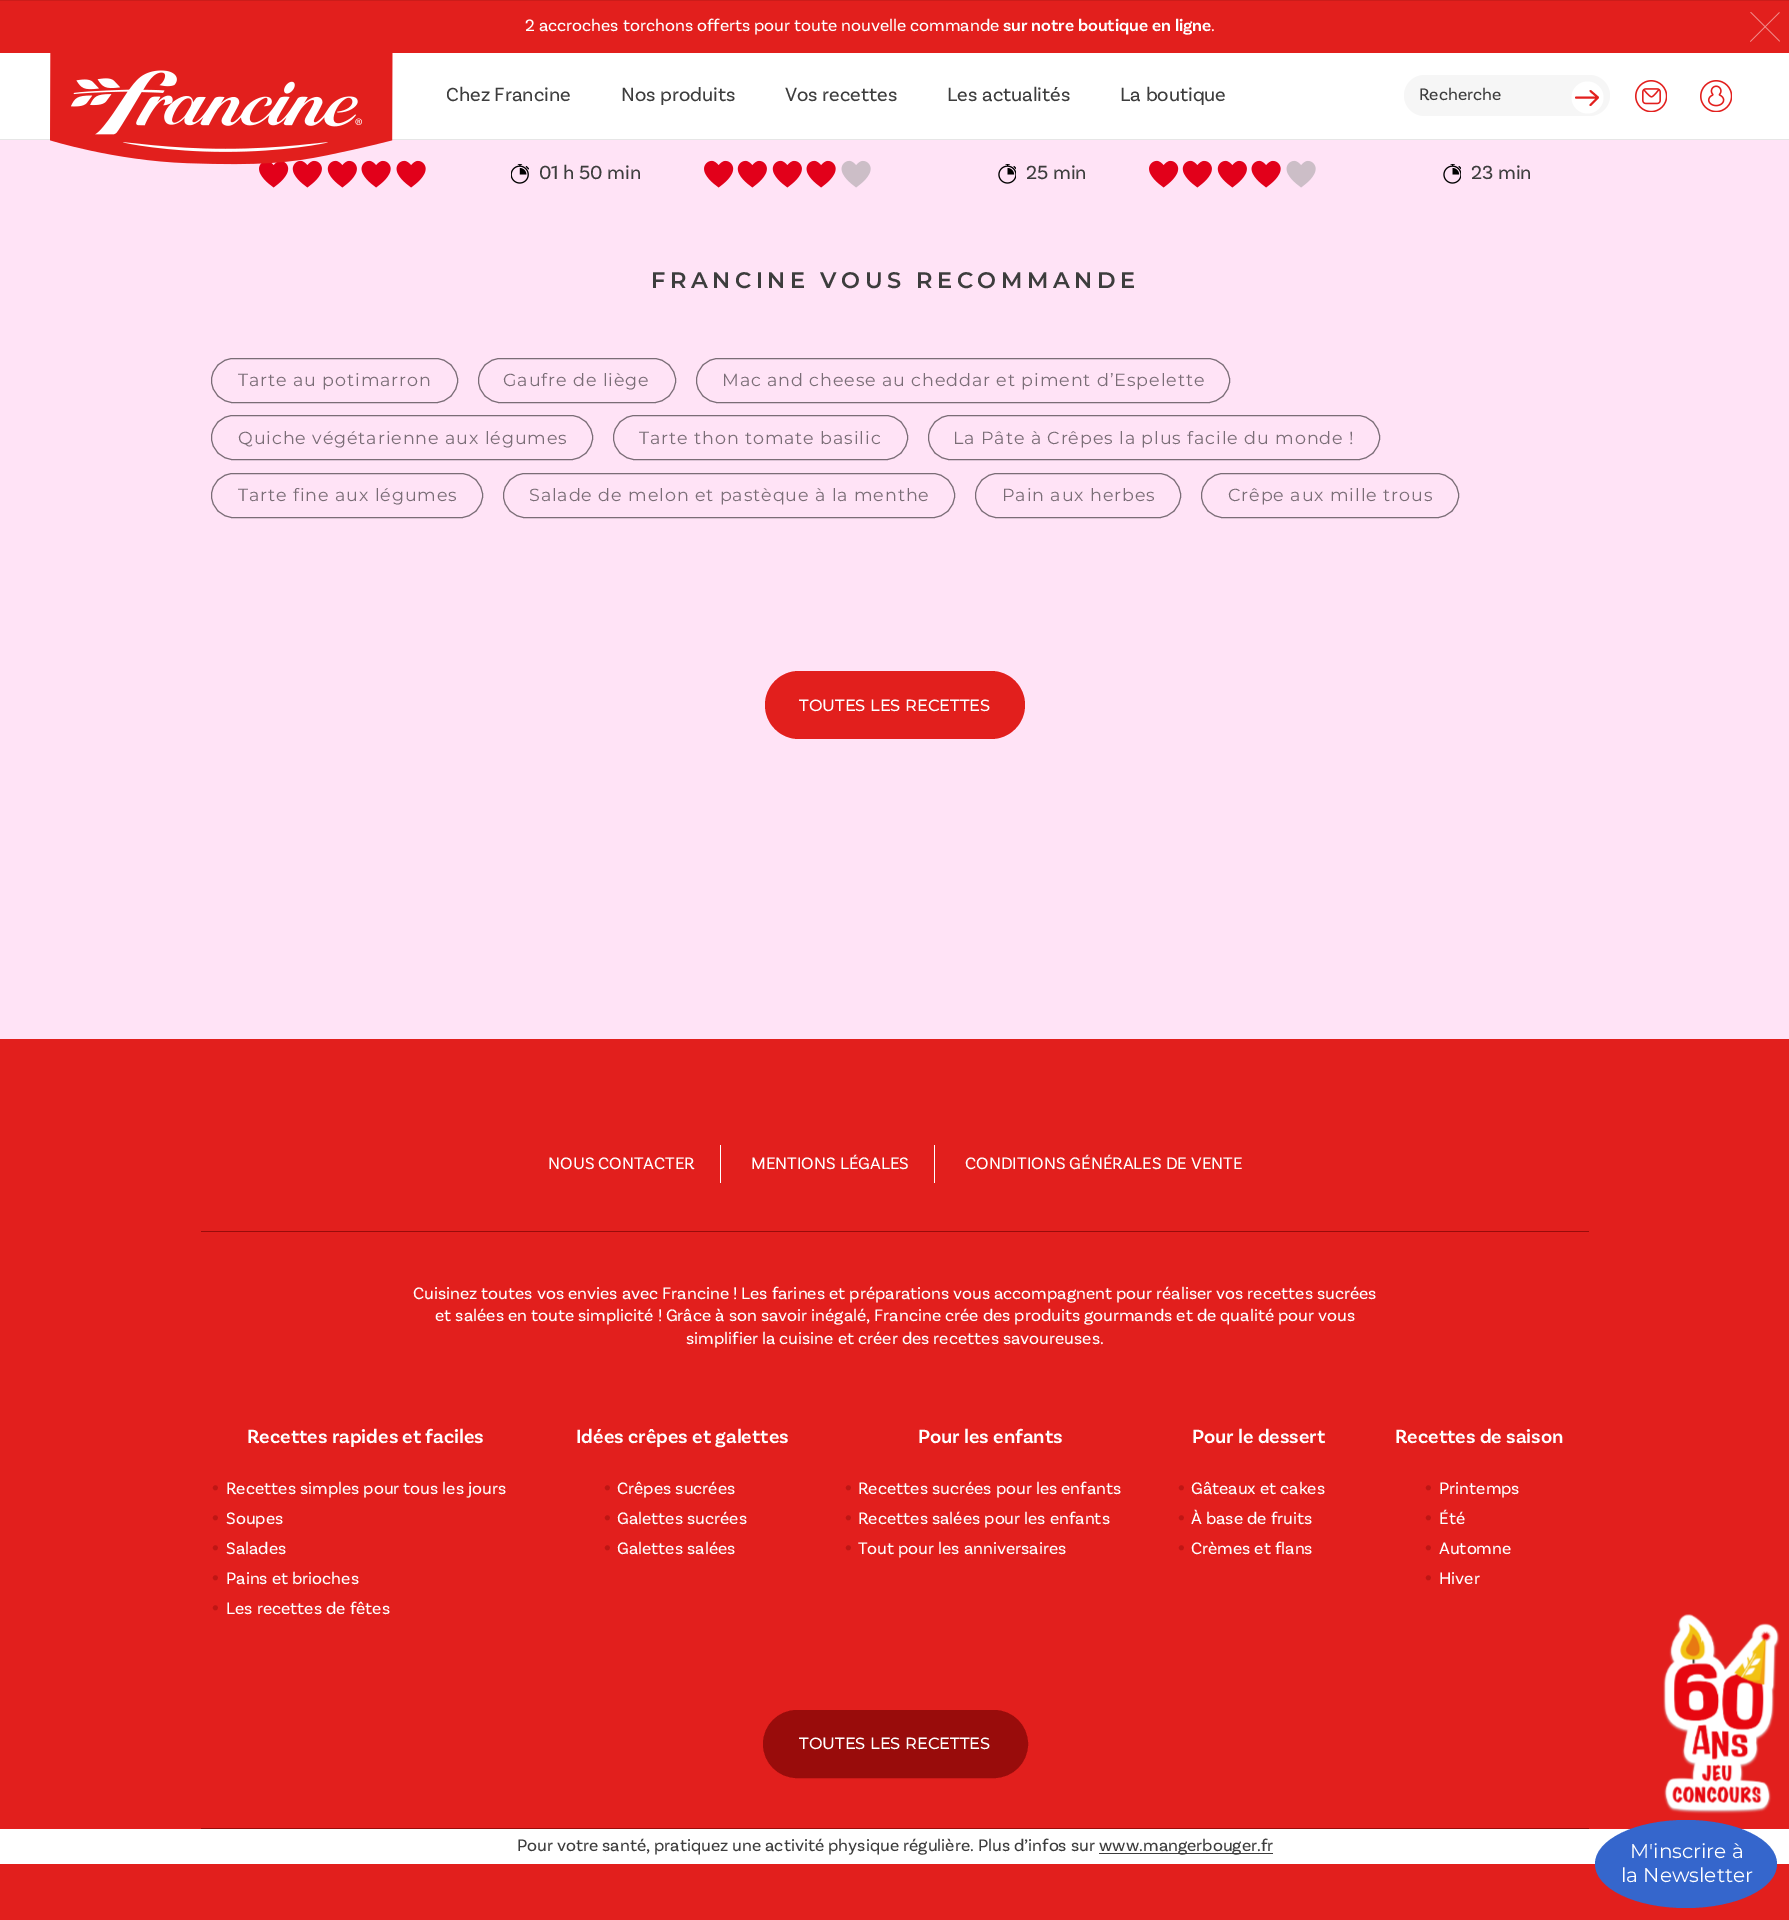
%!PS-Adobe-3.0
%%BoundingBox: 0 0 1789 1920
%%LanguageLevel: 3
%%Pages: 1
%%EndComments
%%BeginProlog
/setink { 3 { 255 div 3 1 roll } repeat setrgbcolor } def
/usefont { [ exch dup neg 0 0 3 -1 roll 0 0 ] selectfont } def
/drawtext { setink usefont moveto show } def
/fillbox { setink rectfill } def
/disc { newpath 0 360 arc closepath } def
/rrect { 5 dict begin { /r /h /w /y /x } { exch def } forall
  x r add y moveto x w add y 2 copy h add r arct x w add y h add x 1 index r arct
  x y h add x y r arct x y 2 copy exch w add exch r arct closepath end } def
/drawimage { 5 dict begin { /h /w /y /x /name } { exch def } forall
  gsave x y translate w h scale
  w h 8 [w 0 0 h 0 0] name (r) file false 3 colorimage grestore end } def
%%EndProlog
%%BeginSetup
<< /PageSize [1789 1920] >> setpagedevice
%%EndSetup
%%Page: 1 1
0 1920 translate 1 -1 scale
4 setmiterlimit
0 0 1789 1920 255 255 255 fillbox
0 139 1789 1 230 230 230 fillbox
0 1 1789 52 226 31 29 fillbox
0 0 1789 1 203 28 26 fillbox
(2 accroches torchons offerts pour toute nouvelle commande) 525 31 /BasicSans-Regular 17.5 255 255 255 drawtext
(sur notre boutique en ligne) 1003 31 /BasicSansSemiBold-SemiBold 17.5 255 255 255 drawtext
(.) 1211 31 /BasicSans-Regular 17.5 255 255 255 drawtext
(assets/img1.rgb) 1750 12 30 30 drawimage
0 140 1789 899 255 227 246 fillbox
(assets/img5.rgb) 259 161 30 27 drawimage
(assets/img6.rgb) 292 160 30 28 drawimage
(assets/img6.rgb) 327 160 30 28 drawimage
(assets/img7.rgb) 361 160 30 28 drawimage
(assets/img2.rgb) 50 53 343 112 drawimage
(Chez Francine) 446 101 /BasicSans-Regular 20 61 61 61 drawtext
(Nos produits) 621 101 /BasicSans-Regular 20 61 61 61 drawtext
(Vos recettes) 785 101 /BasicSans-Regular 20 61 61 61 drawtext
(Les actualités) 947 101 /BasicSans-Regular 20 61 61 61 drawtext
(La boutique) 1120 101 /BasicSans-Regular 20 61 61 61 drawtext
246 246 246 setink
1404 75 206 41 20.5 rrect fill
(Recherche) 1419 100 /BasicSans-Regular 17.5 61 61 61 drawtext
255 255 255 setink
1587.5 97.5 16 disc fill
226 31 29 setink
1.9 setlinewidth
1 setlinecap
1 setlinejoin
1576 97.5 moveto 1597.5 97.5 lineto 1590.5 91 moveto 1598 97.5 lineto 1590.5 105 lineto stroke
(assets/img3.rgb) 1635 80 32 32 drawimage
(assets/img4.rgb) 1700 80 32 32 drawimage
(assets/img7.rgb) 396 160 30 28 drawimage
(assets/img8.rgb) 511 164 18 20 drawimage
(01 h 50 min) 539 179 /BasicSans-Regular 20 61 61 61 drawtext
(assets/img9.rgb) 704 160 30 28 drawimage
(assets/img6.rgb) 737 160 30 28 drawimage
(assets/img6.rgb) 772 160 30 28 drawimage
(assets/img7.rgb) 806 160 30 28 drawimage
(assets/img10.rgb) 841 160 30 28 drawimage
(assets/img11.rgb) 998 164 18 20 drawimage
(25 min) 1026 179 /BasicSans-Regular 20 61 61 61 drawtext
(assets/img9.rgb) 1149 160 30 28 drawimage
(assets/img6.rgb) 1182 160 30 28 drawimage
(assets/img6.rgb) 1217 160 30 28 drawimage
(assets/img7.rgb) 1251 160 30 28 drawimage
(assets/img10.rgb) 1286 160 30 28 drawimage
(assets/img12.rgb) 1443 164 18 20 drawimage
(23 min) 1471 179 /BasicSans-Regular 20 61 61 61 drawtext
/Montserrat-SemiBold 22.5 usefont
651 288 moveto 4.5 0 (FRANCINE VOUS RECOMMANDE) ashow
122 109 118 setink
1 setlinewidth
0 setlinecap
0 setlinejoin
211.5 358.5 246 44 22 rrect stroke
/Montserrat-Regular 17.5 usefont
238 386 moveto 0.9 0 (Tarte au potimarron) ashow
478.5 358.5 197 44 22 rrect stroke
503 386 moveto 0.9 0 (Gaufre de liège) ashow
696.5 358.5 533 44 22 rrect stroke
722 386 moveto 0.9 0 (Mac and cheese au cheddar et piment d’Espelette) ashow
211.5 415.5 381 44 22 rrect stroke
238 444 moveto 0.9 0 (Quiche végétarienne aux légumes) ashow
613.5 415.5 294 44 22 rrect stroke
639 444 moveto 0.9 0 (Tarte thon tomate basilic) ashow
928.5 415.5 451 44 22 rrect stroke
953 444 moveto 0.9 0 (La Pâte à Crêpes la plus facile du monde !) ashow
211.5 473.5 271 44 22 rrect stroke
238 501 moveto 0.9 0 (Tarte fine aux légumes) ashow
503.5 473.5 451 44 22 rrect stroke
529 501 moveto 0.9 0 (Salade de melon et pastèque à la menthe) ashow
975.5 473.5 205 44 22 rrect stroke
1002 501 moveto 0.9 0 (Pain aux herbes) ashow
1201.5 473.5 257 44 22 rrect stroke
1228 501 moveto 0.9 0 (Crêpe aux mille trous) ashow
226 31 29 setink
765 671 260 68 34 rrect fill
(TOUTES LES RECETTES) 799 711 /Montserrat-Medium 16.25 255 255 255 drawtext
0 1039 1789 790 226 31 29 fillbox
201 1231 1388 1 153 12 11 fillbox
720 1145 1 38 255 255 255 fillbox
(NOUS CONTACTER) 548 1169 /BasicSans-Regular 17.5 255 255 255 drawtext
934 1145 1 38 255 255 255 fillbox
(MENTIONS LÉGALES) 751 1169 /BasicSans-Regular 17.5 255 255 255 drawtext
(CONDITIONS GÉNÉRALES DE VENTE) 965 1169 /BasicSans-Regular 17.5 255 255 255 drawtext
(Cuisinez toutes vos envies avec Francine ! Les farines et préparations vous accompagnent pour réaliser vos recettes sucrées) 413 1299 /BasicSans-Regular 17.5 255 255 255 drawtext
(et salées en toute simplicité ! Grâce à son savoir inégalé, Francine crée des produits gourmands et de qualité pour vous) 435 1321 /BasicSans-Regular 17.5 255 255 255 drawtext
(simplifier la cuisine et créer des recettes savoureuses.) 686 1344 /BasicSans-Regular 17.5 255 255 255 drawtext
(Recettes rapides et faciles) 247 1443 /BasicSansSemiBold-SemiBold 20 255 255 255 drawtext
(•) 211 1495 /BasicSans-Regular 25 190 22 20 drawtext
(Recettes simples pour tous les jours) 226 1494 /BasicSans-Regular 17.5 255 255 255 drawtext
(•) 211 1525 /BasicSans-Regular 25 190 22 20 drawtext
(Soupes) 226 1524 /BasicSans-Regular 17.5 255 255 255 drawtext
(•) 211 1555 /BasicSans-Regular 25 190 22 20 drawtext
(Salades) 226 1554 /BasicSans-Regular 17.5 255 255 255 drawtext
(•) 211 1585 /BasicSans-Regular 25 190 22 20 drawtext
(Pains et brioches) 226 1584 /BasicSans-Regular 17.5 255 255 255 drawtext
(•) 211 1615 /BasicSans-Regular 25 190 22 20 drawtext
(Les recettes de fêtes) 226 1614 /BasicSans-Regular 17.5 255 255 255 drawtext
(Idées crêpes et galettes) 576 1443 /BasicSansSemiBold-SemiBold 20 255 255 255 drawtext
(•) 603 1495 /BasicSans-Regular 25 190 22 20 drawtext
(Crêpes sucrées) 617 1494 /BasicSans-Regular 17.5 255 255 255 drawtext
(•) 603 1525 /BasicSans-Regular 25 190 22 20 drawtext
(Galettes sucrées) 617 1524 /BasicSans-Regular 17.5 255 255 255 drawtext
(•) 603 1555 /BasicSans-Regular 25 190 22 20 drawtext
(Galettes salées) 617 1554 /BasicSans-Regular 17.5 255 255 255 drawtext
(Pour les enfants) 918 1443 /BasicSansSemiBold-SemiBold 20 255 255 255 drawtext
(•) 844 1495 /BasicSans-Regular 25 190 22 20 drawtext
(Recettes sucrées pour les enfants) 858 1494 /BasicSans-Regular 17.5 255 255 255 drawtext
(•) 844 1525 /BasicSans-Regular 25 190 22 20 drawtext
(Recettes salées pour les enfants) 858 1524 /BasicSans-Regular 17.5 255 255 255 drawtext
(•) 844 1555 /BasicSans-Regular 25 190 22 20 drawtext
(Tout pour les anniversaires) 858 1554 /BasicSans-Regular 17.5 255 255 255 drawtext
(Pour le dessert) 1192 1443 /BasicSansSemiBold-SemiBold 20 255 255 255 drawtext
(•) 1177 1495 /BasicSans-Regular 25 190 22 20 drawtext
(Gâteaux et cakes) 1191 1494 /BasicSans-Regular 17.5 255 255 255 drawtext
(•) 1177 1525 /BasicSans-Regular 25 190 22 20 drawtext
(À base de fruits) 1191 1524 /BasicSans-Regular 17.5 255 255 255 drawtext
(•) 1177 1555 /BasicSans-Regular 25 190 22 20 drawtext
(Crèmes et flans) 1191 1554 /BasicSans-Regular 17.5 255 255 255 drawtext
(Recettes de saison) 1395 1443 /BasicSansSemiBold-SemiBold 20 255 255 255 drawtext
(•) 1424 1495 /BasicSans-Regular 25 190 22 20 drawtext
(Printemps) 1439 1494 /BasicSans-Regular 17.5 255 255 255 drawtext
(•) 1424 1525 /BasicSans-Regular 25 190 22 20 drawtext
(Été) 1439 1524 /BasicSans-Regular 17.5 255 255 255 drawtext
(•) 1424 1555 /BasicSans-Regular 25 190 22 20 drawtext
(Automne) 1439 1554 /BasicSans-Regular 17.5 255 255 255 drawtext
(•) 1424 1585 /BasicSans-Regular 25 190 22 20 drawtext
(Hiver) 1439 1584 /BasicSans-Regular 17.5 255 255 255 drawtext
201 1828 1388 1 153 12 11 fillbox
764.5 1711.5 262 65 32.5 rrect gsave fill grestore
3 setlinewidth
stroke
(TOUTES LES RECETTES) 799 1749 /Montserrat-Medium 16.25 255 255 255 drawtext
(assets/img13.rgb) 1663 1614 117 200 drawimage
(Pour votre santé, pratiquez une activité physique régulière. Plus d’infos sur) 517 1851 /BasicSans-Regular 17.5 61 61 61 drawtext
1099 1853 174 1 61 61 61 fillbox
(www.mangerbouger.fr) 1099 1851 /BasicSans-Regular 17.5 61 61 61 drawtext
0 1864 1789 56 226 31 29 fillbox
53 102 204 setink
1686 1820 moveto 1736.5 1820 1777 1839.5 1777 1864 curveto 1777 1888.5 1736.5 1908 1686 1908 curveto 1635.5 1908 1595 1888.5 1595 1864 curveto 1595 1839.5 1635.5 1820 1686 1820 curveto closepath fill
(M'inscrire à) 1630 1858 /Montserrat-Regular 20 255 255 255 drawtext
(la Newsletter) 1621 1882 /Montserrat-Regular 20 255 255 255 drawtext
showpage
%%EOF
